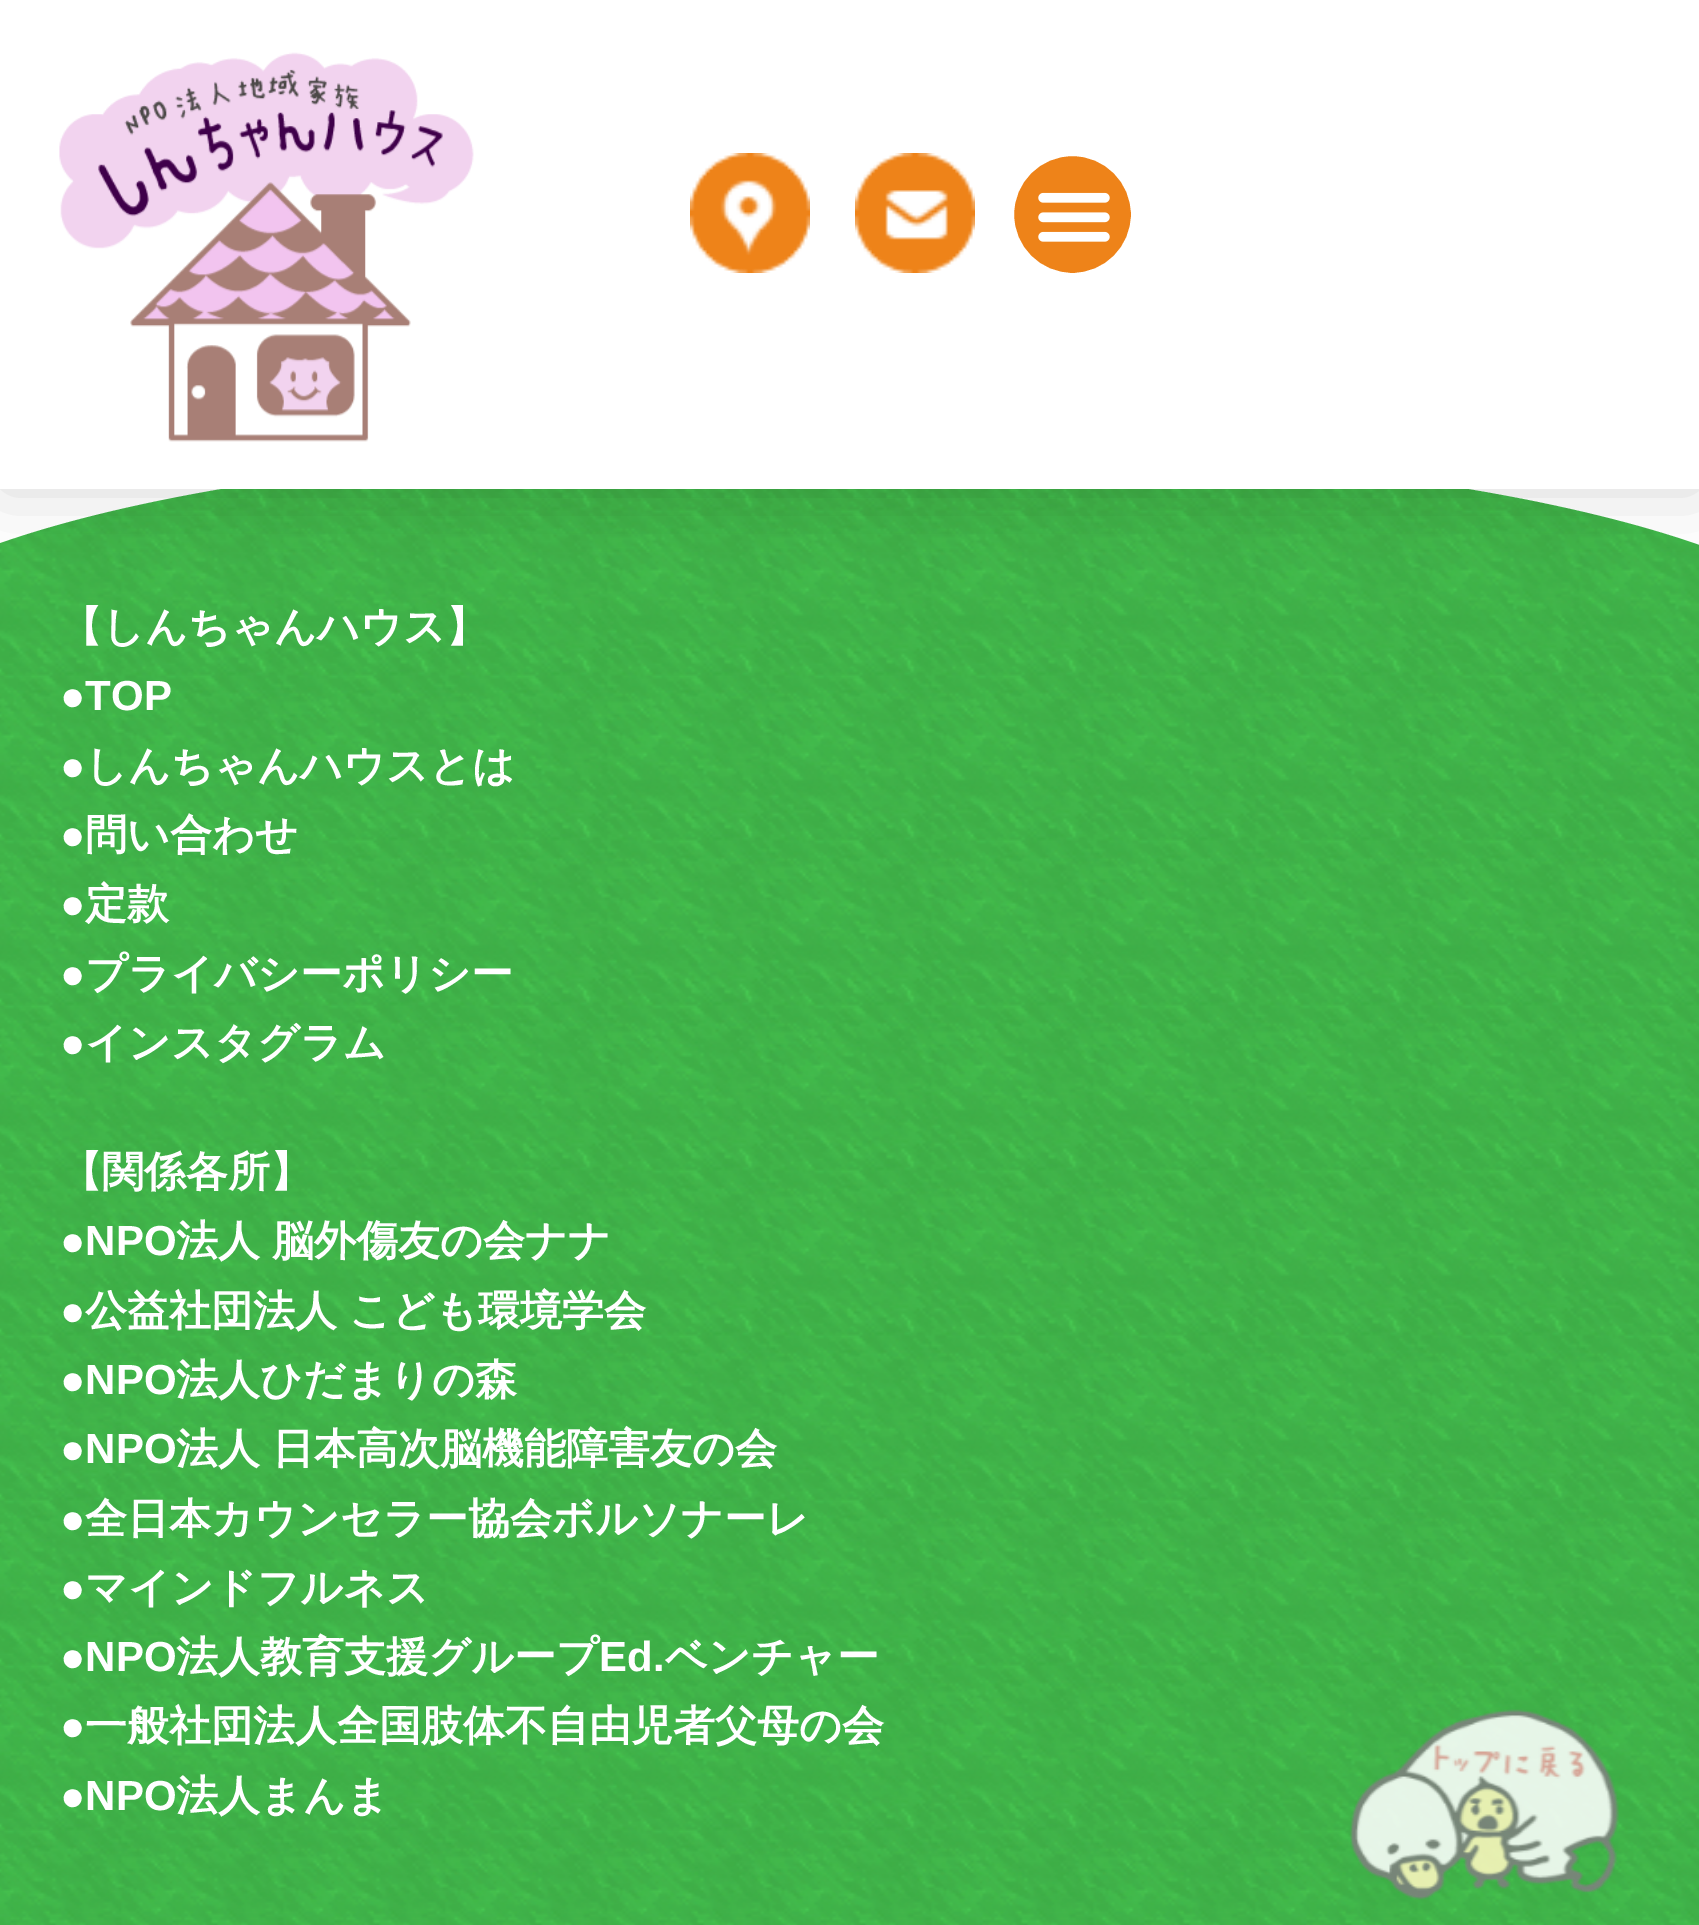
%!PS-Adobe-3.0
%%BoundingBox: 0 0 1699 1925
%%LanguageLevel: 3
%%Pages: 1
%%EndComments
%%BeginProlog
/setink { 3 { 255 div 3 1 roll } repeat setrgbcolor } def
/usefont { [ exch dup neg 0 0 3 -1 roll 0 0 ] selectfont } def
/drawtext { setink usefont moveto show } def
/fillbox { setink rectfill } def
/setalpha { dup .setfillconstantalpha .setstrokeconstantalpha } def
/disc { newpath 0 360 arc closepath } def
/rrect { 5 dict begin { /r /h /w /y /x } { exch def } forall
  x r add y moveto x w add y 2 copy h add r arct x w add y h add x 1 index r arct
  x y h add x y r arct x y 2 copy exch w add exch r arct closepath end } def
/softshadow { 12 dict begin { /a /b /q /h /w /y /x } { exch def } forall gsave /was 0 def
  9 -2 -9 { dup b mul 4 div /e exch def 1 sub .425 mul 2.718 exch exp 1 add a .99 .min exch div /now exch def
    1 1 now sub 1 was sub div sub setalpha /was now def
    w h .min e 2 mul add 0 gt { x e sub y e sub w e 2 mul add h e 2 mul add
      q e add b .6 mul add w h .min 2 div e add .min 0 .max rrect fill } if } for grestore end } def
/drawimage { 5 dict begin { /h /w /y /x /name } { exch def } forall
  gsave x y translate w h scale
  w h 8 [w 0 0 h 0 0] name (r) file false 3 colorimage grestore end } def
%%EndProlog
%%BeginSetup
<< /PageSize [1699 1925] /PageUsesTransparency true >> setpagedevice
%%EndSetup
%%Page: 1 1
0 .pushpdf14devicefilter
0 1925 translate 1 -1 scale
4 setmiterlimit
0 0 1699 1925 255 255 255 fillbox
(assets/img5.rgb) 0 489 1699 1436 drawimage
849 445 moveto 1568 446 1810 577 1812 610 curveto 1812 439 lineto -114 439 lineto -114 609 lineto -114 577 130 443 849 445 curveto closepath fill
0 0 0 setink
0 0 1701 489 0 36 0.15 softshadow
0 0 1699 489 255 255 255 fillbox
(assets/img1.rgb) 59 52 415 390 drawimage
(assets/img2.rgb) 690 153 120 120 drawimage
(assets/img3.rgb) 855 153 120 120 drawimage
238 131 25 setink
1072.5 214.5 63 disc gsave fill grestore
255 255 255 setink
9 setlinewidth
stroke
(assets/img4.rgb) 1038 192 72 50 drawimage
(【しんちゃんハウス】) 60 641 /WenQuanYiZenHei-Bold 42 255 255 255 drawtext
(●TOP) 60 710 /LiberationSans-Bold 42 255 255 255 drawtext
(●) 60 780 /LiberationSans-Bold 42 255 255 255 drawtext
(しんちゃんハウスとは) 85 780 /WenQuanYiZenHei-Bold 42 255 255 255 drawtext
(●) 60 849 /LiberationSans-Bold 42 255 255 255 drawtext
(問い合わせ) 85 849 /WenQuanYiZenHei-Bold 42 255 255 255 drawtext
(●) 60 918 /LiberationSans-Bold 42 255 255 255 drawtext
(定款) 85 918 /WenQuanYiZenHei-Bold 42 255 255 255 drawtext
(●) 60 988 /LiberationSans-Bold 42 255 255 255 drawtext
(プライバシーポリシー) 85 988 /WenQuanYiZenHei-Bold 42 255 255 255 drawtext
(●) 60 1057 /LiberationSans-Bold 42 255 255 255 drawtext
(インスタグラム) 85 1057 /WenQuanYiZenHei-Bold 42 255 255 255 drawtext
(【関係各所】) 60 1186 /WenQuanYiZenHei-Bold 42 255 255 255 drawtext
(●NPO) 60 1255 /LiberationSans-Bold 42 255 255 255 drawtext
/WenQuanYiZenHei-Bold 42 usefont
176 1255 moveto -1 0 32 (法人 脳外傷友の会ナナ) widthshow
(●) 60 1325 /LiberationSans-Bold 42 255 255 255 drawtext
/WenQuanYiZenHei-Bold 42 usefont
85 1325 moveto -1 0 32 (公益社団法人 こども環境学会) widthshow
(●NPO) 60 1394 /LiberationSans-Bold 42 255 255 255 drawtext
(法人ひだまりの森) 176 1394 /WenQuanYiZenHei-Bold 42 255 255 255 drawtext
(●NPO) 60 1463 /LiberationSans-Bold 42 255 255 255 drawtext
/WenQuanYiZenHei-Bold 42 usefont
176 1463 moveto -1 0 32 (法人 日本高次脳機能障害友の会) widthshow
(●) 60 1533 /LiberationSans-Bold 42 255 255 255 drawtext
(全日本カウンセラー協会ボルソナーレ) 85 1533 /WenQuanYiZenHei-Bold 42 255 255 255 drawtext
(●) 60 1602 /LiberationSans-Bold 42 255 255 255 drawtext
(マインドフルネス) 85 1602 /WenQuanYiZenHei-Bold 42 255 255 255 drawtext
(●NPO) 60 1671 /LiberationSans-Bold 42 255 255 255 drawtext
(法人教育支援グループ) 176 1671 /WenQuanYiZenHei-Bold 42 255 255 255 drawtext
(Ed.) 599 1671 /LiberationSans-Bold 42 255 255 255 drawtext
(ベンチャー) 665 1671 /WenQuanYiZenHei-Bold 42 255 255 255 drawtext
(●) 60 1740 /LiberationSans-Bold 42 255 255 255 drawtext
(一般社団法人全国肢体不自由児者父母の会) 85 1740 /WenQuanYiZenHei-Bold 42 255 255 255 drawtext
(●NPO) 60 1810 /LiberationSans-Bold 42 255 255 255 drawtext
(法人まんま) 176 1810 /WenQuanYiZenHei-Bold 42 255 255 255 drawtext
(assets/img6.rgb) 1350 1709 269 191 drawimage
.poppdf14devicefilter showpage
%%EOF
